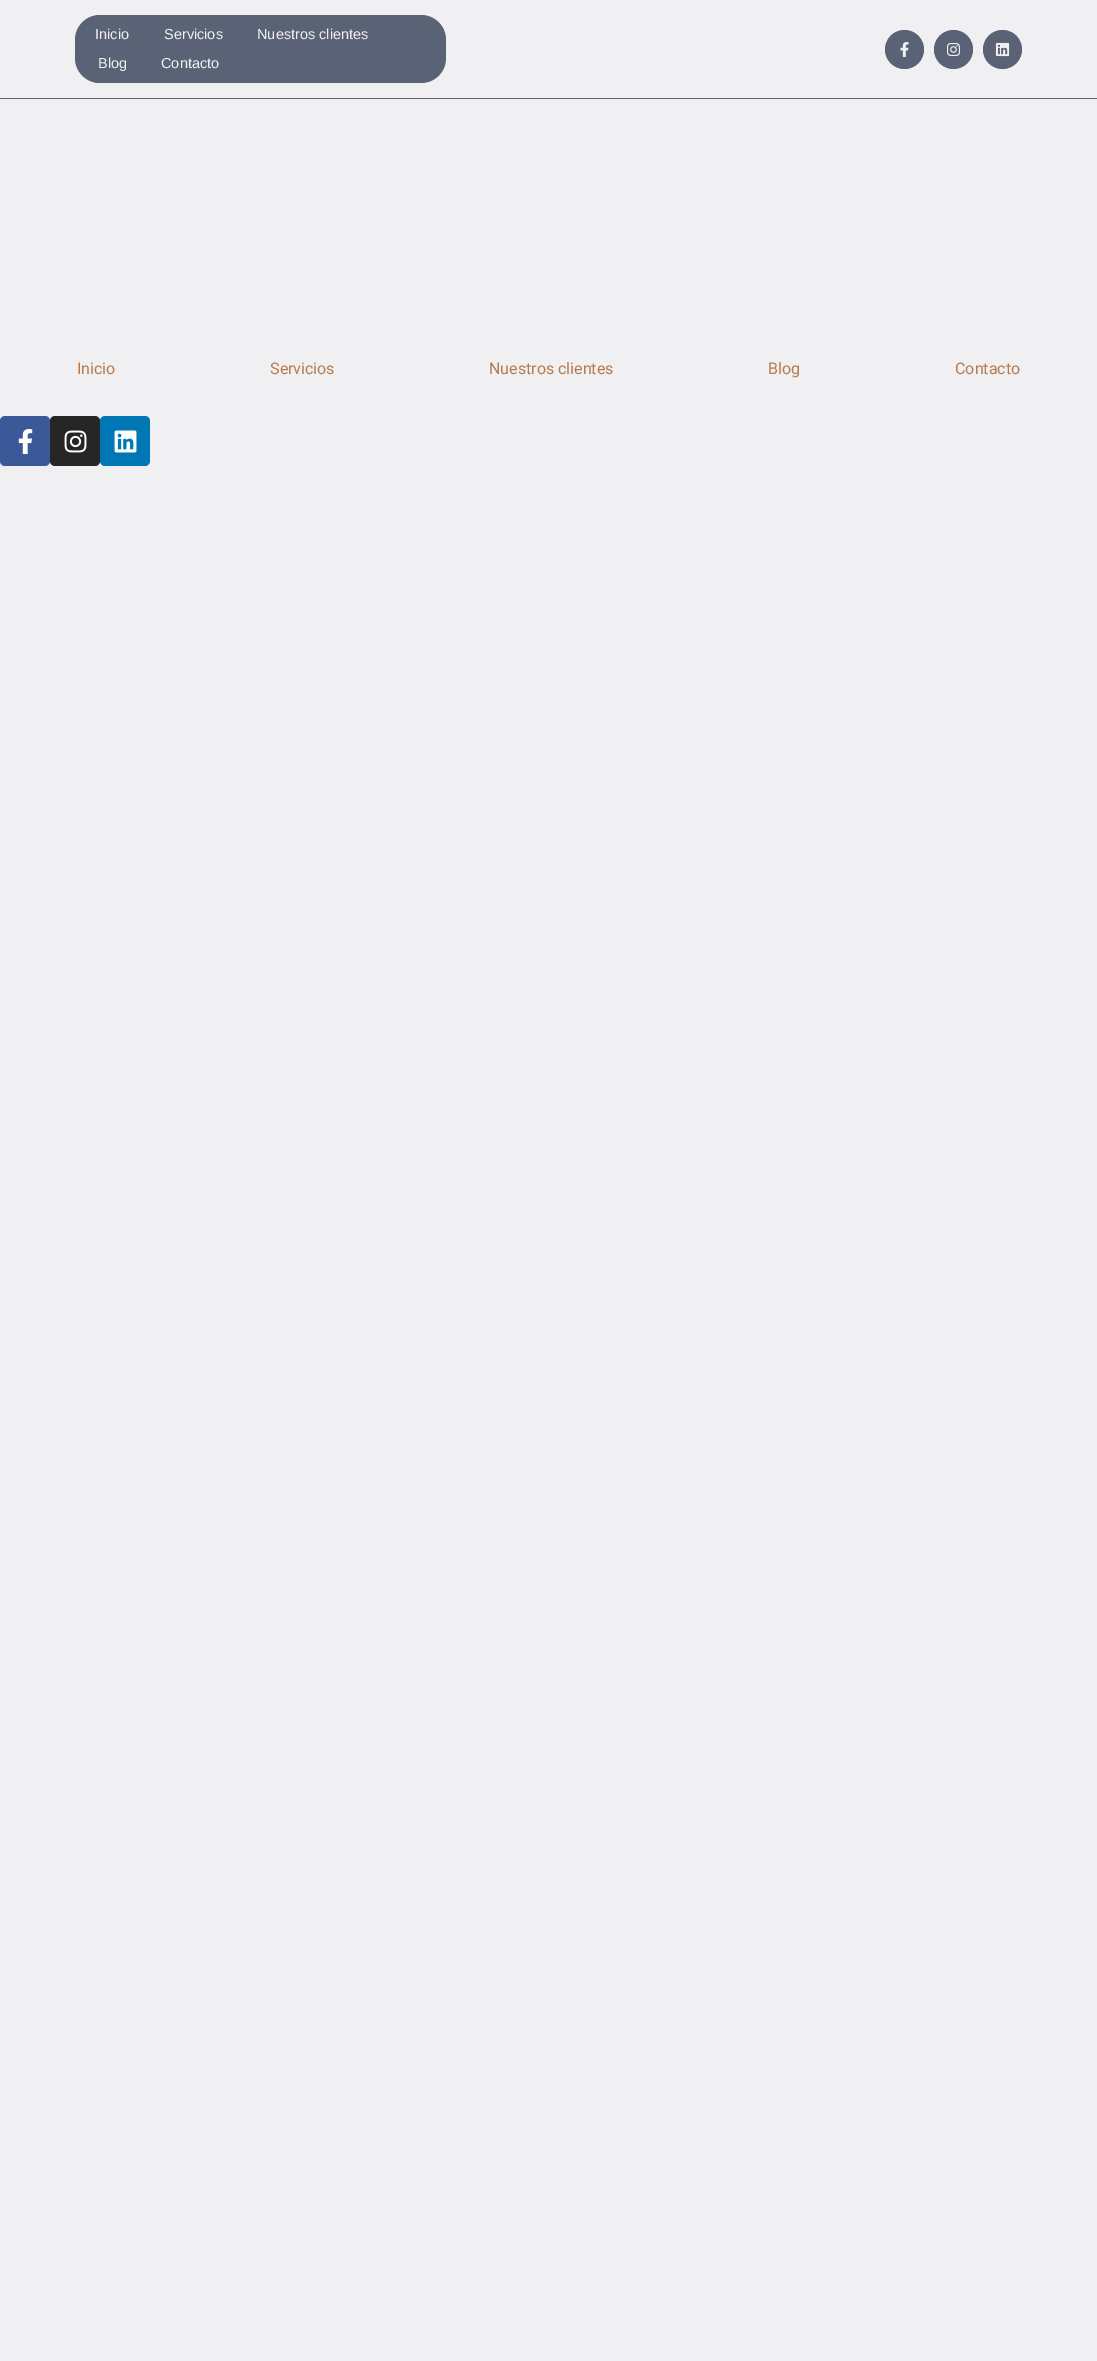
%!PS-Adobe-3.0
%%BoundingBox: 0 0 1097 2361
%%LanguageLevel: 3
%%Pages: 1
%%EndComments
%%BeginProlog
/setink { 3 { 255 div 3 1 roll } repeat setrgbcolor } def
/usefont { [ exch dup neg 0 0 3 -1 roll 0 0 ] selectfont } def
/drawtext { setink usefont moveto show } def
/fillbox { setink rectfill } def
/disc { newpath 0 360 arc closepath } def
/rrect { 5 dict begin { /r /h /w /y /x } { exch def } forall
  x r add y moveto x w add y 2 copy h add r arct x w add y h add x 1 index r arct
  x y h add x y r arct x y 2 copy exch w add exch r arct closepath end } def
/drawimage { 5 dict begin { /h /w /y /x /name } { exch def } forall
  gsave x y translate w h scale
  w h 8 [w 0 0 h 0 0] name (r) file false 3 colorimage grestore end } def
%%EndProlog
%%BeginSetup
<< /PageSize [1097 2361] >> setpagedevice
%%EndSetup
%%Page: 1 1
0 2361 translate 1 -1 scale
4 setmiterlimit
0 0 1097 2361 240 240 242 fillbox
0 98 1097 1 90 98 117 fillbox
75 15 371 68 25 rrect fill
(Inicio) 95 39 /LiberationSans-Regular 14.5 240 240 242 drawtext
(Servicios) 164 39 /LiberationSans-Regular 14.5 240 240 242 drawtext
(Nuestros clientes) 257 39 /LiberationSans-Regular 14.5 240 240 242 drawtext
(Blog) 98 68 /LiberationSans-Regular 14.5 240 240 242 drawtext
(Contacto) 161 68 /LiberationSans-Regular 14.5 240 240 242 drawtext
90 98 117 setink
904.5 49.5 19.5 disc fill
(assets/img1.rgb) 900 42 9 15 drawimage
953.5 49.5 19.5 disc fill
(assets/img2.rgb) 947 43 13 13 drawimage
1002.5 49.5 19.5 disc fill
(assets/img3.rgb) 995 42 15 15 drawimage
(Inicio) 77 374 /Roboto-Regular 16 183 123 78 drawtext
(Servicios) 270 374 /Roboto-Regular 16 183 123 78 drawtext
(Nuestros clientes) 489 374 /Roboto-Regular 16 183 123 78 drawtext
(Blog) 768 374 /Roboto-Regular 16 183 123 78 drawtext
(Contacto) 955 374 /Roboto-Regular 16 183 123 78 drawtext
59 89 152 setink
0 416 50 50 5 rrect fill
(assets/img4.rgb) 18 429 15 25 drawimage
38 38 38 setink
50 416 50 50 5 rrect fill
(assets/img5.rgb) 64 430 23 23 drawimage
0 119 181 setink
100 416 50 50 5 rrect fill
(assets/img6.rgb) 114 430 23 23 drawimage
showpage
%%EOF
